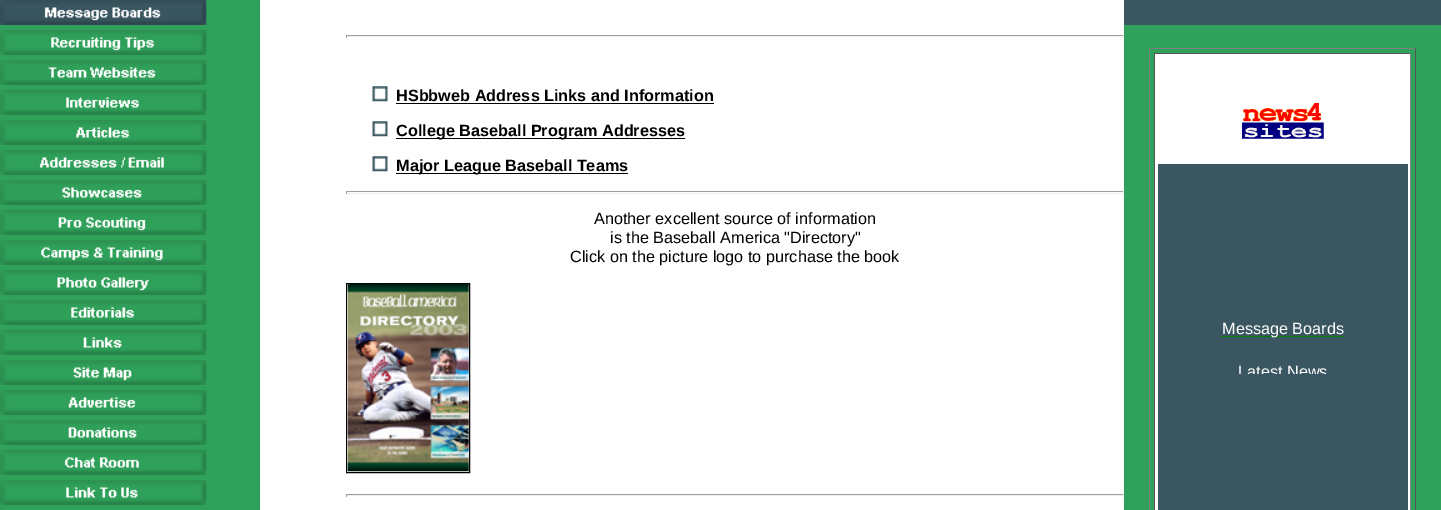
%!PS-Adobe-3.0
%%BoundingBox: 0 0 1441 510
%%LanguageLevel: 3
%%Pages: 1
%%EndComments
%%BeginProlog
/setink { 3 { 255 div 3 1 roll } repeat setrgbcolor } def
/usefont { [ exch dup neg 0 0 3 -1 roll 0 0 ] selectfont } def
/drawtext { setink usefont moveto show } def
/fillbox { setink rectfill } def
/drawimage { 5 dict begin { /h /w /y /x /name } { exch def } forall
  gsave x y translate w h scale
  w h 8 [w 0 0 h 0 0] name (r) file false 3 colorimage grestore end } def
%%EndProlog
%%BeginSetup
<< /PageSize [1441 510] >> setpagedevice
%%EndSetup
%%Page: 1 1
0 510 translate 1 -1 scale
4 setmiterlimit
0 0 1441 510 255 255 255 fillbox
0 0 260 510 48 161 90 fillbox
(assets/img1.rgb) 0 0 207 25 drawimage
(assets/img2.rgb) 0 30 207 25 drawimage
(assets/img3.rgb) 0 60 207 25 drawimage
(assets/img4.rgb) 0 90 207 25 drawimage
(assets/img5.rgb) 0 120 207 25 drawimage
(assets/img6.rgb) 0 150 207 25 drawimage
(assets/img7.rgb) 0 180 207 25 drawimage
(assets/img8.rgb) 0 210 207 25 drawimage
(assets/img9.rgb) 0 240 207 25 drawimage
(assets/img10.rgb) 0 270 207 25 drawimage
(assets/img11.rgb) 0 300 207 25 drawimage
(assets/img12.rgb) 0 330 207 25 drawimage
(assets/img13.rgb) 0 360 207 25 drawimage
(assets/img14.rgb) 0 390 207 25 drawimage
(assets/img15.rgb) 0 420 207 25 drawimage
(assets/img16.rgb) 0 450 207 25 drawimage
(assets/img17.rgb) 0 480 207 25 drawimage
346 35 778 1 159 159 159 fillbox
1123 35 1 3 238 238 238 fillbox
346 36 778 1 238 238 238 fillbox
346 35 1 3 159 159 159 fillbox
(assets/img18.rgb) 372 86 16 16 drawimage
(HSbbweb Address Links and Information) 396 101 /LiberationSans-Bold 16.25 0 0 0 drawtext
396 103 318 1 0 0 0 fillbox
(assets/img18.rgb) 372 121 16 16 drawimage
396 138 289 1 0 0 0 fillbox
(College Baseball Program Addresses) 396 136 /LiberationSans-Bold 16.25 0 0 0 drawtext
(assets/img18.rgb) 372 156 16 16 drawimage
396 173 232 1 0 0 0 fillbox
(Major League Baseball Teams) 396 171 /LiberationSans-Bold 16.25 0 0 0 drawtext
346 191 778 1 159 159 159 fillbox
1123 191 1 3 238 238 238 fillbox
346 193 778 1 238 238 238 fillbox
346 191 1 3 159 159 159 fillbox
(Another excellent source of information) 594 224 /LiberationSans-Regular 16.25 0 0 0 drawtext
(is the Baseball America "Directory") 610 243 /LiberationSans-Regular 16.25 0 0 0 drawtext
(Click on the picture logo to purchase the book) 570 262 /LiberationSans-Regular 16.25 0 0 0 drawtext
346.5 283.5 123 189 rectstroke
(assets/img19.rgb) 347 283 122 189 drawimage
346 494 778 1 159 159 159 fillbox
1123 494 1 3 238 238 238 fillbox
346 495 778 1 238 238 238 fillbox
346 494 1 3 159 159 159 fillbox
1124 0 317 25 58 87 97 fillbox
1124 25 317 485 48 161 90 fillbox
1149 48 267 1 128 128 128 fillbox
1415 48 1 462 85 85 85 fillbox
1149 48 1 462 128 128 128 fillbox
1155 54 255 456 255 255 255 fillbox
1154 53 257 1 85 85 85 fillbox
1410 53 1 457 128 128 128 fillbox
1154 53 1 457 85 85 85 fillbox
(assets/img20.rgb) 1242 103 82 36 drawimage
1158 164 250 346 58 87 97 fillbox
1221 336 123 1 0 128 0 fillbox
(Message Boards) 1222 334 /LiberationSans-Regular 16.25 255 255 255 drawtext
gsave
1158 186 250 188 rectclip
(Latest News) 1238 377 /LiberationSans-Regular 16.25 255 255 255 drawtext
grestore
showpage
%%EOF
